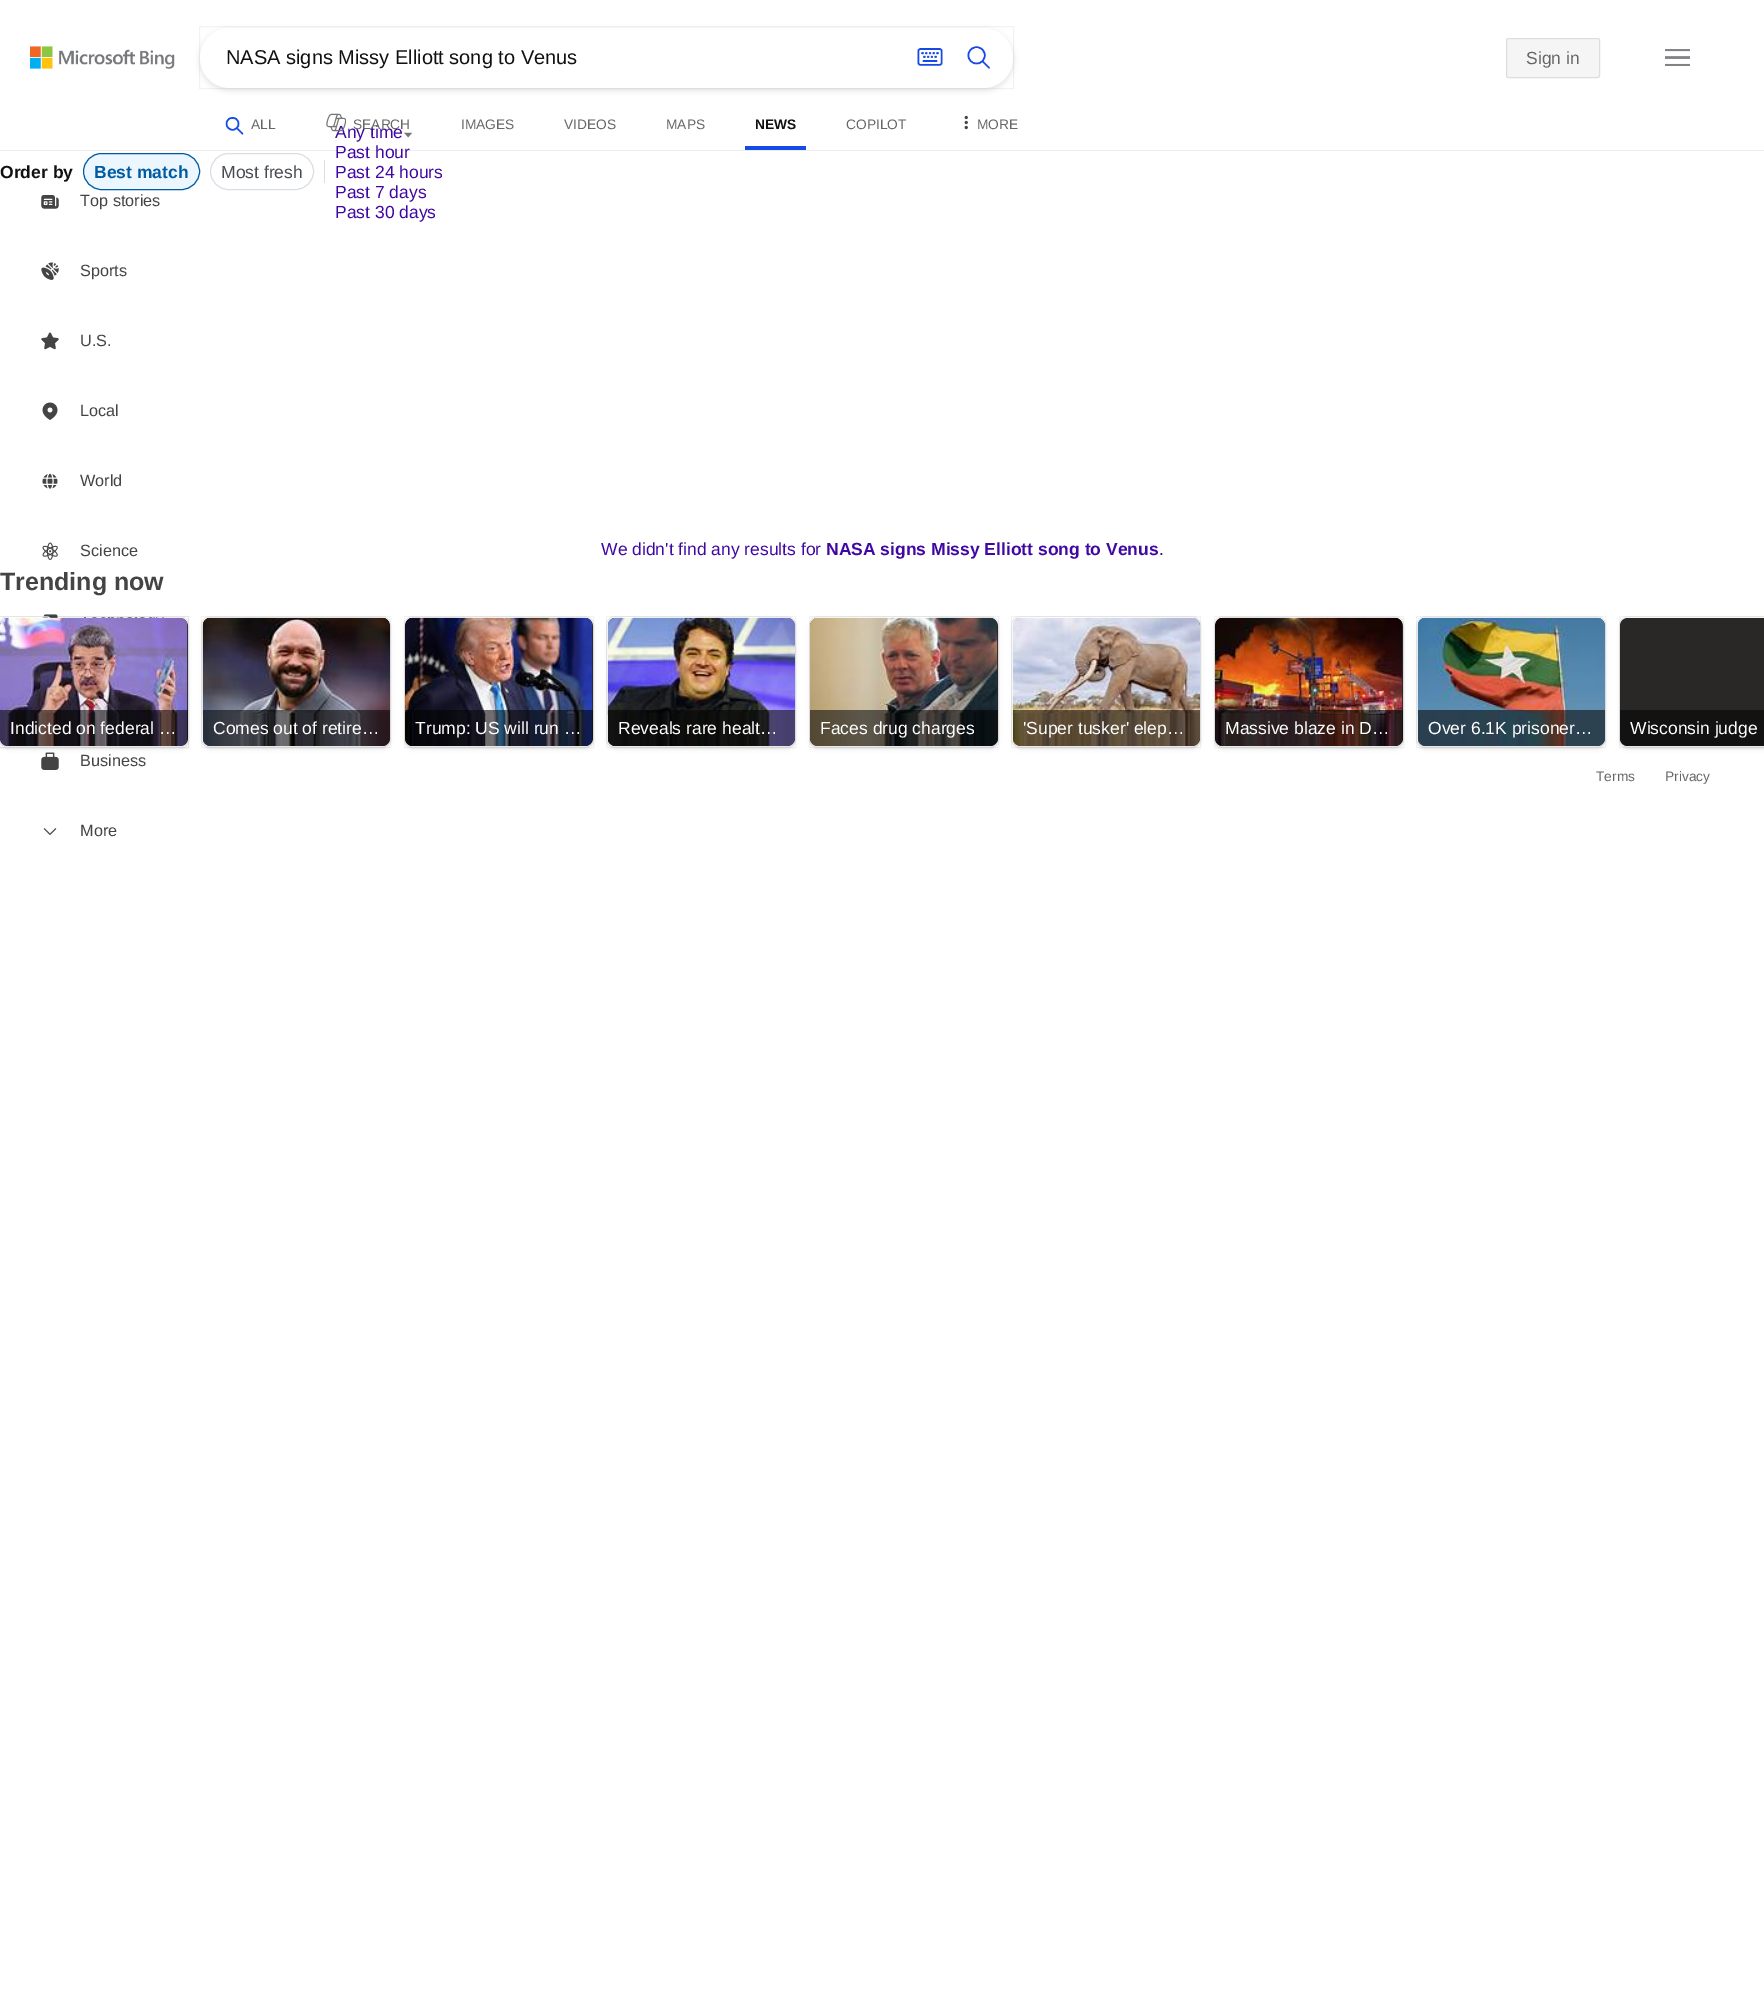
%!PS-Adobe-3.0
%%BoundingBox: 0 0 1764 2005
%%LanguageLevel: 3
%%Pages: 1
%%EndComments
%%BeginProlog
/setink { 3 { 255 div 3 1 roll } repeat setrgbcolor } def
/usefont { [ exch dup neg 0 0 3 -1 roll 0 0 ] selectfont } def
/drawtext { setink usefont moveto show } def
/fillbox { setink rectfill } def
/setalpha { dup .setfillconstantalpha .setstrokeconstantalpha } def
/rrect { 5 dict begin { /r /h /w /y /x } { exch def } forall
  x r add y moveto x w add y 2 copy h add r arct x w add y h add x 1 index r arct
  x y h add x y r arct x y 2 copy exch w add exch r arct closepath end } def
/softshadow { 12 dict begin { /a /b /q /h /w /y /x } { exch def } forall gsave /was 0 def
  9 -2 -9 { dup b mul 4 div /e exch def 1 sub .425 mul 2.718 exch exp 1 add a .99 .min exch div /now exch def
    1 1 now sub 1 was sub div sub setalpha /was now def
    w h .min e 2 mul add 0 gt { x e sub y e sub w e 2 mul add h e 2 mul add
      q e add b .6 mul add w h .min 2 div e add .min 0 .max rrect fill } if } for grestore end } def
/drawimage { 5 dict begin { /h /w /y /x /name } { exch def } forall
  gsave x y translate w h scale
  w h 8 [w 0 0 h 0 0] name (r) file false 3 colorimage grestore end } def
%%EndProlog
%%BeginSetup
<< /PageSize [1764 2005] /PageUsesTransparency true >> setpagedevice
%%EndSetup
%%Page: 1 1
0 .pushpdf14devicefilter
0 2005 translate 1 -1 scale
4 setmiterlimit
0 0 1764 2005 255 255 255 fillbox
0 150 1764 1 236 236 236 fillbox
(assets/img1.rgb) 30 46 145 23 drawimage
0 0 0 setink
199 29 815 62 31 2.5 0.09 softshadow
0.05 setalpha
199.5 26.5 814 62 rectstroke
1 setalpha
255 255 255 setink
200 28 813 60 30 rrect fill
(NASA signs Missy Elliott song to Venus) 226 64 /LiberationSans-Regular 20 17 17 17 drawtext
(assets/img2.rgb) 917 48 26 18 drawimage
(assets/img3.rgb) 967 46 23 23 drawimage
245 245 245 setink
1506.5 38.5 93 39 2 rrect gsave fill grestore
221 221 221 setink
stroke
(Sign in) 1526 64 /LiberationSans-Regular 17.5 102 102 102 drawtext
(assets/img4.rgb) 1665 49 25 17 drawimage
(assets/img5.rgb) 225 117 19 18 drawimage
(ALL) 251 129 /LiberationSans-Regular 13.75 102 102 102 drawtext
(Any time) 335 138 /LiberationSans-Regular 17.5 64 7 162 drawtext
(assets/img6.rgb) 326 113 20 19 drawimage
(SEARCH) 353 129 /LiberationSans-Regular 13.75 102 102 102 drawtext
(IMAGES) 461 129 /LiberationSans-Regular 13.75 102 102 102 drawtext
(VIDEOS) 564 129 /LiberationSans-Regular 13.75 102 102 102 drawtext
(MAPS) 666 129 /LiberationSans-Regular 13.75 102 102 102 drawtext
(NEWS) 755 129 /LiberationSans-Bold 13.75 17 17 17 drawtext
745 146 61 4 23 74 228 fillbox
(COPILOT) 846 129 /LiberationSans-Regular 13.75 102 102 102 drawtext
(assets/img7.rgb) 964 115 4 15 drawimage
(MORE) 977 129 /LiberationSans-Regular 13.75 102 102 102 drawtext
(Order by) 0 178 /LiberationSans-Bold 17.5 17 17 17 drawtext
235 246 255 setink
83.5 153.5 116 36 18 rrect gsave fill grestore
0 91 161 setink
stroke
(Best match) 94 178 /LiberationSans-Bold 17.5 0 91 161 drawtext
218 222 229 setink
210.5 153.5 103 36 18 rrect stroke
(Most fresh) 221 178 /LiberationSans-Regular 17.5 71 75 80 drawtext
324 160 1 23 221 221 221 fillbox
(assets/img8.rgb) 404 132 9 6 drawimage
(Past hour) 335 158 /LiberationSans-Regular 17.5 64 7 162 drawtext
(Past 24 hours) 335 178 /LiberationSans-Regular 17.5 64 7 162 drawtext
(Past 7 days) 335 198 /LiberationSans-Regular 17.5 64 7 162 drawtext
(Past 30 days) 335 218 /LiberationSans-Regular 17.5 64 7 162 drawtext
(We didn't find any results for) 601 555 /LiberationSans-Regular 17.5 64 7 162 drawtext
(NASA signs Missy Elliott song to Venus) 826 555 /LiberationSans-Bold 17.5 64 7 162 drawtext
(.) 1159 555 /LiberationSans-Regular 17.5 64 7 162 drawtext
(Trending now) 0 590 /LiberationSans-Bold 25 68 68 68 drawtext
(assets/img31.rgb) 42 614 16 4 drawimage
0.05 setalpha
0 0 0 setink
-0.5 616.5 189 131 rectstroke
1 setalpha
(assets/img32.rgb) 41 752 18 18 drawimage
0 620 188 129 8 2 0.1 softshadow
0.05 setalpha
-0.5 616.5 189 131 rectstroke
1 setalpha
41 40 39 setink
0 618 188 128 8 rrect fill
(assets/img10.rgb) 0 711 188 35 drawimage
(assets/img9.rgb) 0 617 188 98 drawimage
0.55 setalpha
0 0 0 setink
0 710 moveto 188 710 lineto 188 738 lineto 188 742.5 184.5 746 180 746 curveto 8 746 lineto 3.5 746 0 742.5 0 738 curveto closepath fill
1 setalpha
(Indicted on federal …) 10 734 /LiberationSans-Regular 17.5 255 255 255 drawtext
242 242 242 setink
201.5 616.5 189 131 8.5 rrect stroke
0 0 0 setink
203 620 187 129 8 2 0.1 softshadow
0.05 setalpha
201.5 616.5 189 131 rectstroke
1 setalpha
41 40 39 setink
203 618 187 128 8 rrect fill
(assets/img12.rgb) 202 711 188 35 drawimage
(assets/img11.rgb) 202 617 188 98 drawimage
0.55 setalpha
0 0 0 setink
203 710 moveto 390 710 lineto 390 738 lineto 390 742.5 386.5 746 382 746 curveto 211 746 lineto 206.5 746 203 742.5 203 738 curveto closepath fill
1 setalpha
(Comes out of retire…) 213 734 /LiberationSans-Regular 17.5 255 255 255 drawtext
242 242 242 setink
404.5 616.5 189 131 8.5 rrect stroke
0 0 0 setink
405 620 188 129 8 2 0.1 softshadow
0.05 setalpha
404.5 616.5 189 131 rectstroke
1 setalpha
41 40 39 setink
405 618 188 128 8 rrect fill
(assets/img14.rgb) 405 711 188 35 drawimage
(assets/img13.rgb) 405 617 188 98 drawimage
0.55 setalpha
0 0 0 setink
405 710 moveto 593 710 lineto 593 738 lineto 593 742.5 589.5 746 585 746 curveto 413 746 lineto 408.5 746 405 742.5 405 738 curveto closepath fill
1 setalpha
(Trump: US will run …) 415 734 /LiberationSans-Regular 17.5 255 255 255 drawtext
242 242 242 setink
606.5 616.5 189 131 8.5 rrect stroke
0 0 0 setink
608 620 187 129 8 2 0.1 softshadow
0.05 setalpha
606.5 616.5 189 131 rectstroke
1 setalpha
41 40 39 setink
608 618 187 128 8 rrect fill
(assets/img16.rgb) 607 711 188 35 drawimage
(assets/img15.rgb) 607 617 188 98 drawimage
0.55 setalpha
0 0 0 setink
608 710 moveto 795 710 lineto 795 738 lineto 795 742.5 791.5 746 787 746 curveto 616 746 lineto 611.5 746 608 742.5 608 738 curveto closepath fill
1 setalpha
(Reveals rare healt…) 618 734 /LiberationSans-Regular 17.5 255 255 255 drawtext
242 242 242 setink
809.5 616.5 189 131 8.5 rrect stroke
0 0 0 setink
810 620 188 129 8 2 0.1 softshadow
0.05 setalpha
809.5 616.5 189 131 rectstroke
1 setalpha
41 40 39 setink
810 618 188 128 8 rrect fill
(assets/img17.rgb) 810 617 188 98 drawimage
(assets/img18.rgb) 810 715 187 31 drawimage
0.55 setalpha
0 0 0 setink
810 710 moveto 998 710 lineto 998 738 lineto 998 742.5 994.5 746 990 746 curveto 818 746 lineto 813.5 746 810 742.5 810 738 curveto closepath fill
1 setalpha
(Faces drug charges) 820 734 /LiberationSans-Regular 17.5 255 255 255 drawtext
242 242 242 setink
1011.5 616.5 189 131 8.5 rrect stroke
0 0 0 setink
1013 620 187 129 8 2 0.1 softshadow
0.05 setalpha
1011.5 616.5 189 131 rectstroke
1 setalpha
41 40 39 setink
1013 618 187 128 8 rrect fill
(assets/img20.rgb) 1012 711 188 35 drawimage
(assets/img19.rgb) 1012 617 188 98 drawimage
0.55 setalpha
0 0 0 setink
1013 710 moveto 1200 710 lineto 1200 738 lineto 1200 742.5 1196.5 746 1192 746 curveto 1021 746 lineto 1016.5 746 1013 742.5 1013 738 curveto closepath fill
1 setalpha
('Super tusker' elep…) 1023 734 /LiberationSans-Regular 17.5 255 255 255 drawtext
242 242 242 setink
1214.5 616.5 189 131 8.5 rrect stroke
0 0 0 setink
1215 620 188 129 8 2 0.1 softshadow
0.05 setalpha
1214.5 616.5 189 131 rectstroke
1 setalpha
41 40 39 setink
1215 618 188 128 8 rrect fill
(assets/img21.rgb) 1215 617 188 98 drawimage
(assets/img22.rgb) 1215 715 187 31 drawimage
0.55 setalpha
0 0 0 setink
1215 710 moveto 1403 710 lineto 1403 738 lineto 1403 742.5 1399.5 746 1395 746 curveto 1223 746 lineto 1218.5 746 1215 742.5 1215 738 curveto closepath fill
1 setalpha
(Massive blaze in D…) 1225 734 /LiberationSans-Regular 17.5 255 255 255 drawtext
242 242 242 setink
1416.5 616.5 189 131 8.5 rrect stroke
0 0 0 setink
1418 620 187 129 8 2 0.1 softshadow
0.05 setalpha
1416.5 616.5 189 131 rectstroke
1 setalpha
41 40 39 setink
1418 618 187 128 8 rrect fill
(assets/img24.rgb) 1417 711 188 35 drawimage
(assets/img23.rgb) 1417 617 188 98 drawimage
0.55 setalpha
0 0 0 setink
1418 710 moveto 1605 710 lineto 1605 738 lineto 1605 742.5 1601.5 746 1597 746 curveto 1426 746 lineto 1421.5 746 1418 742.5 1418 738 curveto closepath fill
1 setalpha
(Over 6.1K prisoner…) 1428 734 /LiberationSans-Regular 17.5 255 255 255 drawtext
242 242 242 setink
1619.5 616.5 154 131 8.5 rrect stroke
0 0 0 setink
1620 620 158 129 8 2 0.1 softshadow
0.05 setalpha
1619.5 616.5 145 131 rectstroke
1 setalpha
41 40 39 setink
1628 618 moveto 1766 618 lineto 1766 746 lineto 1628 746 lineto 1623.5 746 1620 742.5 1620 738 curveto 1620 626 lineto 1620 621.5 1623.5 618 1628 618 curveto closepath fill
0.55 setalpha
0 0 0 setink
1620 710 moveto 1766 710 lineto 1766 746 lineto 1628 746 lineto 1623.5 746 1620 742.5 1620 738 curveto closepath fill
1 setalpha
(Wisconsin judge) 1630 734 /LiberationSans-Regular 17.5 255 255 255 drawtext
(assets/img25.rgb) 41 195 18 14 drawimage
(Top stories) 80 206 /LiberationSans-Regular 16.25 68 68 68 drawtext
(assets/img26.rgb) 41 262 18 18 drawimage
(Sports) 80 276 /LiberationSans-Regular 16.25 68 68 68 drawtext
(assets/img27.rgb) 41 332 18 18 drawimage
(U.S.) 80 346 /LiberationSans-Regular 16.25 68 68 68 drawtext
(assets/img28.rgb) 42 402 16 18 drawimage
(Local) 80 416 /LiberationSans-Regular 16.25 68 68 68 drawtext
(assets/img29.rgb) 42 473 16 16 drawimage
(World) 80 486 /LiberationSans-Regular 16.25 68 68 68 drawtext
(assets/img30.rgb) 42 542 16 18 drawimage
(Science) 80 556 /LiberationSans-Regular 16.25 68 68 68 drawtext
(Business) 80 766 /LiberationSans-Regular 16.25 68 68 68 drawtext
(assets/img33.rgb) 43 828 14 7 drawimage
(More) 80 836 /LiberationSans-Regular 16.25 68 68 68 drawtext
(Terms) 1596 781 /LiberationSans-Regular 13.75 102 102 102 drawtext
(Privacy) 1665 781 /LiberationSans-Regular 13.75 102 102 102 drawtext
.poppdf14devicefilter showpage
%%EOF
